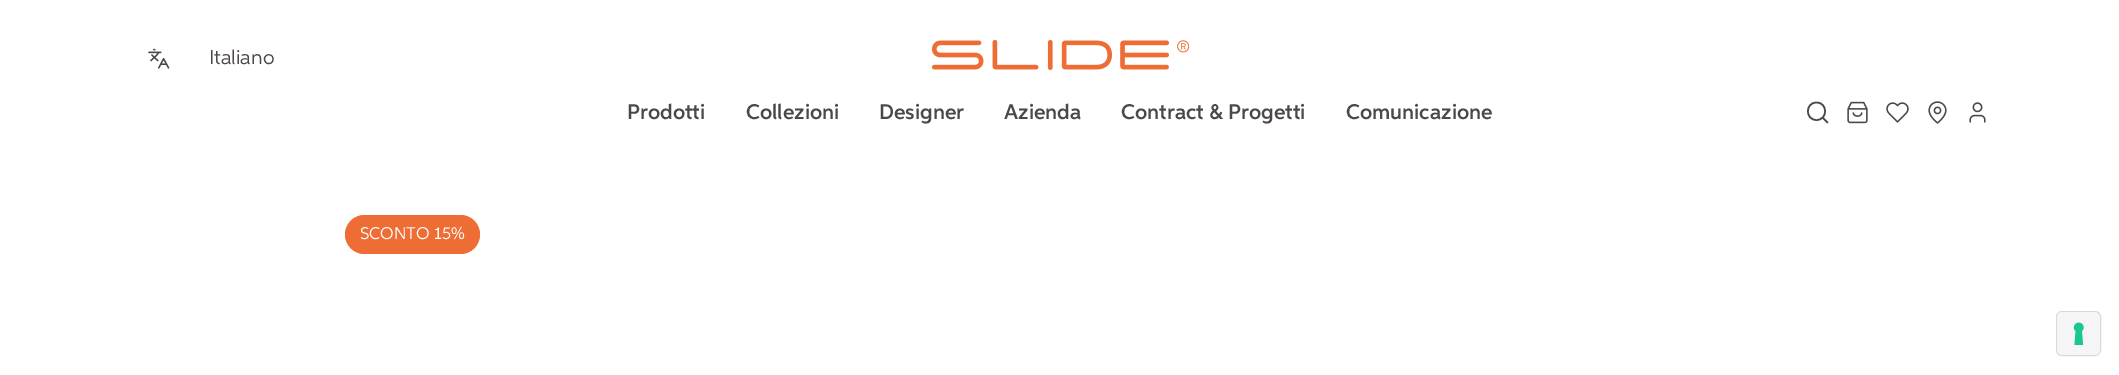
%!PS-Adobe-3.0
%%BoundingBox: 0 0 2119 375
%%LanguageLevel: 3
%%Pages: 1
%%EndComments
%%BeginProlog
/setink { 3 { 255 div 3 1 roll } repeat setrgbcolor } def
/usefont { [ exch dup neg 0 0 3 -1 roll 0 0 ] selectfont } def
/drawtext { setink usefont moveto show } def
/fillbox { setink rectfill } def
/rrect { 5 dict begin { /r /h /w /y /x } { exch def } forall
  x r add y moveto x w add y 2 copy h add r arct x w add y h add x 1 index r arct
  x y h add x y r arct x y 2 copy exch w add exch r arct closepath end } def
/drawimage { 5 dict begin { /h /w /y /x /name } { exch def } forall
  gsave x y translate w h scale
  w h 8 [w 0 0 h 0 0] name (r) file false 3 colorimage grestore end } def
%%EndProlog
%%BeginSetup
<< /PageSize [2119 375] >> setpagedevice
%%EndSetup
%%Page: 1 1
0 375 translate 1 -1 scale
4 setmiterlimit
0 0 2119 375 255 255 255 fillbox
(assets/img1.rgb) 148 48 22 21 drawimage
(Italiano) 209 64 /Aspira-Regular 20 77 71 71 drawtext
(assets/img2.rgb) 932 40 258 30 drawimage
1.6 setlinewidth
1 setlinecap
1 setlinejoin
1816.5 120 moveto 1828 120 1828 102.5 1816.5 102.5 curveto 1805 102.5 1805 120 1816.5 120 curveto closepath 1827.5 122.5 moveto 1822.5 117.5 lineto stroke
(assets/img3.rgb) 1847 101 21 23 drawimage
(assets/img4.rgb) 1886 102 23 21 drawimage
(assets/img5.rgb) 1928 101 19 23 drawimage
(assets/img6.rgb) 1969 102 17 21 drawimage
(Prodotti) 627 119 /Aspira-SemiBold 21.25 77 71 71 drawtext
(Collezioni) 746 119 /Aspira-SemiBold 21.25 77 71 71 drawtext
(Designer) 879 119 /Aspira-SemiBold 21.25 77 71 71 drawtext
(Azienda) 1004 119 /Aspira-SemiBold 21.25 77 71 71 drawtext
(Contract & Progetti) 1121 119 /Aspira-SemiBold 21.25 77 71 71 drawtext
(Comunicazione) 1346 119 /Aspira-SemiBold 21.25 77 71 71 drawtext
237 109 52 setink
345 215 135 39 19.5 rrect fill
(SCONTO 15%) 360 239 /Aspira-Regular 17 255 255 255 drawtext
217 217 217 setink
1 setlinewidth
0 setlinecap
0 setlinejoin
2056.5 311.5 44 44 5.5 rrect stroke
245 245 247 setink
2058 313 42 42 5 rrect fill
(assets/img7.rgb) 2073 322 11 23 drawimage
showpage
%%EOF
